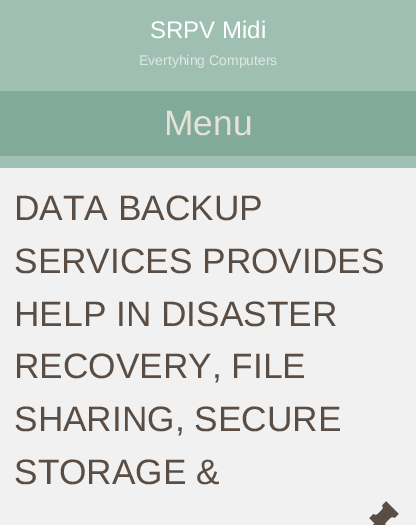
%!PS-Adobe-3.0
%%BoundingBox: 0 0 416 525
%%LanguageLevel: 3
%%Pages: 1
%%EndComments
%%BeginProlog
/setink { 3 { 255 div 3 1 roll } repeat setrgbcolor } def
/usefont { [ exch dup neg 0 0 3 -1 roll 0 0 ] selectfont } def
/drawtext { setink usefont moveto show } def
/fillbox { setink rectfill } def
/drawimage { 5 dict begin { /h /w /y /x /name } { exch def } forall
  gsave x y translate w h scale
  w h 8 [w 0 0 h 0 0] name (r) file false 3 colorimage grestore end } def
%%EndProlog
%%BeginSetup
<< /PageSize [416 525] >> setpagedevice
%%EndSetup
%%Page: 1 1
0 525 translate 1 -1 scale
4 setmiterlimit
0 0 416 525 160 191 179 fillbox
(SRPV Midi) 150 38 /LiberationSans-Regular 24 255 255 255 drawtext
(Evertyhing Computers) 139 65 /LiberationSans-Regular 14 221 232 228 drawtext
0 91 416 65 130 170 155 fillbox
(Menu) 164 135 /LiberationSans-Regular 35.25 231 226 217 drawtext
0 168 416 357 241 241 241 fillbox
(DATA BACKUP) 14 220 /LiberationSans-Regular 35.25 90 77 67 drawtext
(SERVICES PROVIDES) 14 273 /LiberationSans-Regular 35.25 90 77 67 drawtext
(HELP IN DISASTER) 14 326 /LiberationSans-Regular 35.25 90 77 67 drawtext
(RECOVERY, FILE) 14 378 /LiberationSans-Regular 35.25 90 77 67 drawtext
(SHARING, SECURE) 14 431 /LiberationSans-Regular 35.25 90 77 67 drawtext
(STORAGE &) 14 484 /LiberationSans-Regular 35.25 90 77 67 drawtext
(assets/img1.rgb) 369 501 30 24 drawimage
showpage
%%EOF
